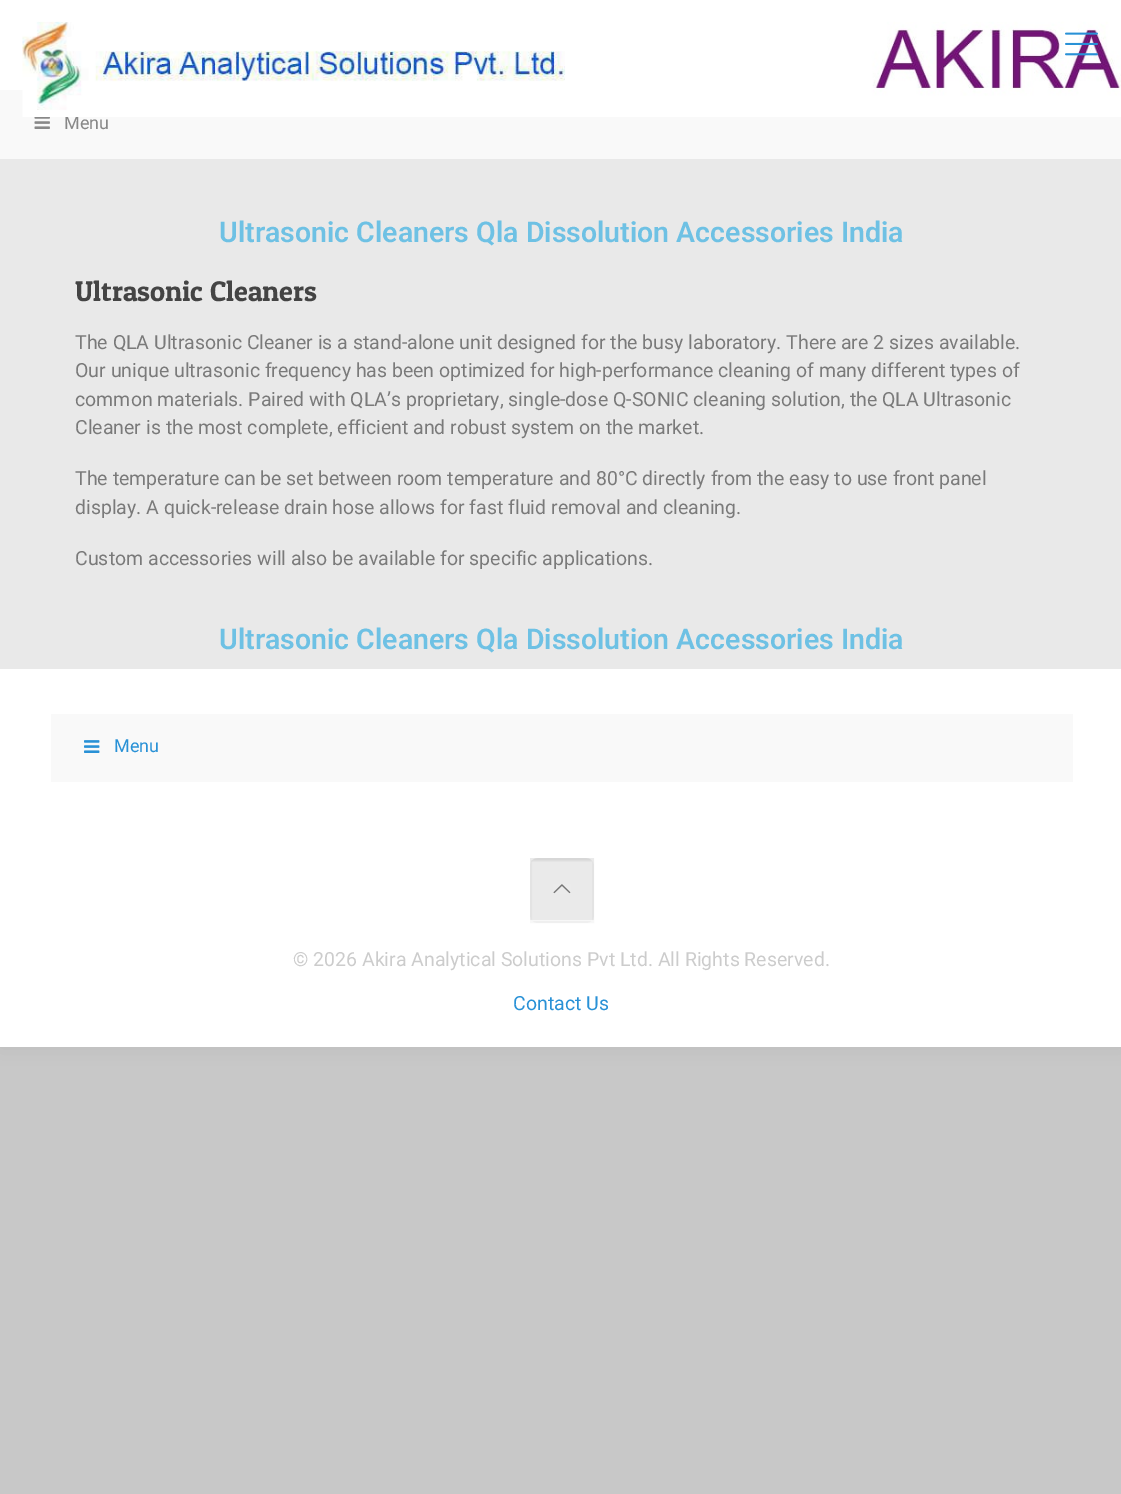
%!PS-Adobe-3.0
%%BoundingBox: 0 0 1121 1494
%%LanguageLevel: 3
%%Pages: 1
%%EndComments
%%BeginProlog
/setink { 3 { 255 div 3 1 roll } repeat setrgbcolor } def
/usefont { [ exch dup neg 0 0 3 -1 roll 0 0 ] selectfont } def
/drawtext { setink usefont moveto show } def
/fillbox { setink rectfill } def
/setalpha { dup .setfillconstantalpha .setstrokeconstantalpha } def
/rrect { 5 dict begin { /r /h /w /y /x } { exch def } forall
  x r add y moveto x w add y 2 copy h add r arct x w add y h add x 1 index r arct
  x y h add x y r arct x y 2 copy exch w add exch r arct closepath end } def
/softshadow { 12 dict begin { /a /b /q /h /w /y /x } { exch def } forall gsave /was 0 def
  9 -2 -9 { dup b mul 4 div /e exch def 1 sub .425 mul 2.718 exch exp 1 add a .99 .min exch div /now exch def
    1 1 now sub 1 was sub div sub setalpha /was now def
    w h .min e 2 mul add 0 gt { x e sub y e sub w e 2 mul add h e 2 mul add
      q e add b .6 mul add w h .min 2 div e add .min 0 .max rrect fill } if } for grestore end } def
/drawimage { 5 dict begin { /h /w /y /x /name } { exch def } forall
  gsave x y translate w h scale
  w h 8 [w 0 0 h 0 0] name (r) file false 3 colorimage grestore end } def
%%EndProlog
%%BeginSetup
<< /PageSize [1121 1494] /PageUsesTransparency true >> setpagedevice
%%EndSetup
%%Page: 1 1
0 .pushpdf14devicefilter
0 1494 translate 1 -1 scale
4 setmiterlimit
0 0 1121 1494 200 200 200 fillbox
0 0 0 setink
0 0 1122 1047 0 11 0.06 softshadow
0 159 1121 510 233 233 233 fillbox
0 0 1121 90 255 255 255 fillbox
0 90 1121 69 249 249 249 fillbox
(Menu) 64 129 /Roboto-Regular 18 136 136 136 drawtext
(assets/img1.rgb) 22 21 1099 96 drawimage
(assets/img2.rgb) 1065 32 33 24 drawimage
(assets/img3.rgb) 34 117 16 12 drawimage
(Ultrasonic Cleaners Qla Dissolution Accessories India) 219 242 /Roboto-SemiBold 28.5 110 193 228 drawtext
(Ultrasonic Cleaners) 75 301 /PatuaOne-Regular 28.5 68 68 68 drawtext
(The QLA Ultrasonic Cleaner is a stand-alone unit designed for the busy laboratory. There are 2 sizes available.) 75 349 /Roboto-Regular 19.5 122 122 122 drawtext
(Our unique ultrasonic frequency has been optimized for high-performance cleaning of many different types of) 75 377 /Roboto-Regular 19.5 122 122 122 drawtext
(common materials. Paired with QLA’s proprietary, single-dose Q-SONIC cleaning solution, the QLA Ultrasonic) 75 406 /Roboto-Regular 19.5 122 122 122 drawtext
(Cleaner is the most complete, efficient and robust system on the market.) 75 434 /Roboto-Regular 19.5 122 122 122 drawtext
(The temperature can be set between room temperature and 80°C directly from the easy to use front panel) 75 485 /Roboto-Regular 19.5 122 122 122 drawtext
(display. A quick-release drain hose allows for fast fluid removal and cleaning.) 75 514 /Roboto-Regular 19.5 122 122 122 drawtext
(Custom accessories will also be available for specific applications.) 75 565 /Roboto-Regular 19.5 122 122 122 drawtext
(Ultrasonic Cleaners Qla Dissolution Accessories India) 219 649 /Roboto-SemiBold 28.5 110 193 228 drawtext
0 669 1121 378 255 255 255 fillbox
51 714 1022 68 249 249 249 fillbox
(assets/img4.rgb) 84 740 16 13 drawimage
(Menu) 114 752 /Roboto-Regular 18 41 145 214 drawtext
247 247 247 setink
530 858 64 65 8 rrect fill
(assets/img5.rgb) 531 858 61 4 drawimage
0.03 setalpha
0 0 0 setink
2 setlinewidth
531 859 62 63 rectstroke
0.05 setalpha
530 858 64 62 0 0 0 fillbox
1 setalpha
(assets/img6.rgb) 553 884 18 10 drawimage
(© 2026 Akira Analytical Solutions Pvt Ltd. All Rights Reserved.) 293 966 /Roboto-Regular 19.5 204 204 204 drawtext
(Contact Us) 513 1010 /Roboto-Regular 19.5 41 145 214 drawtext
.poppdf14devicefilter showpage
%%EOF
